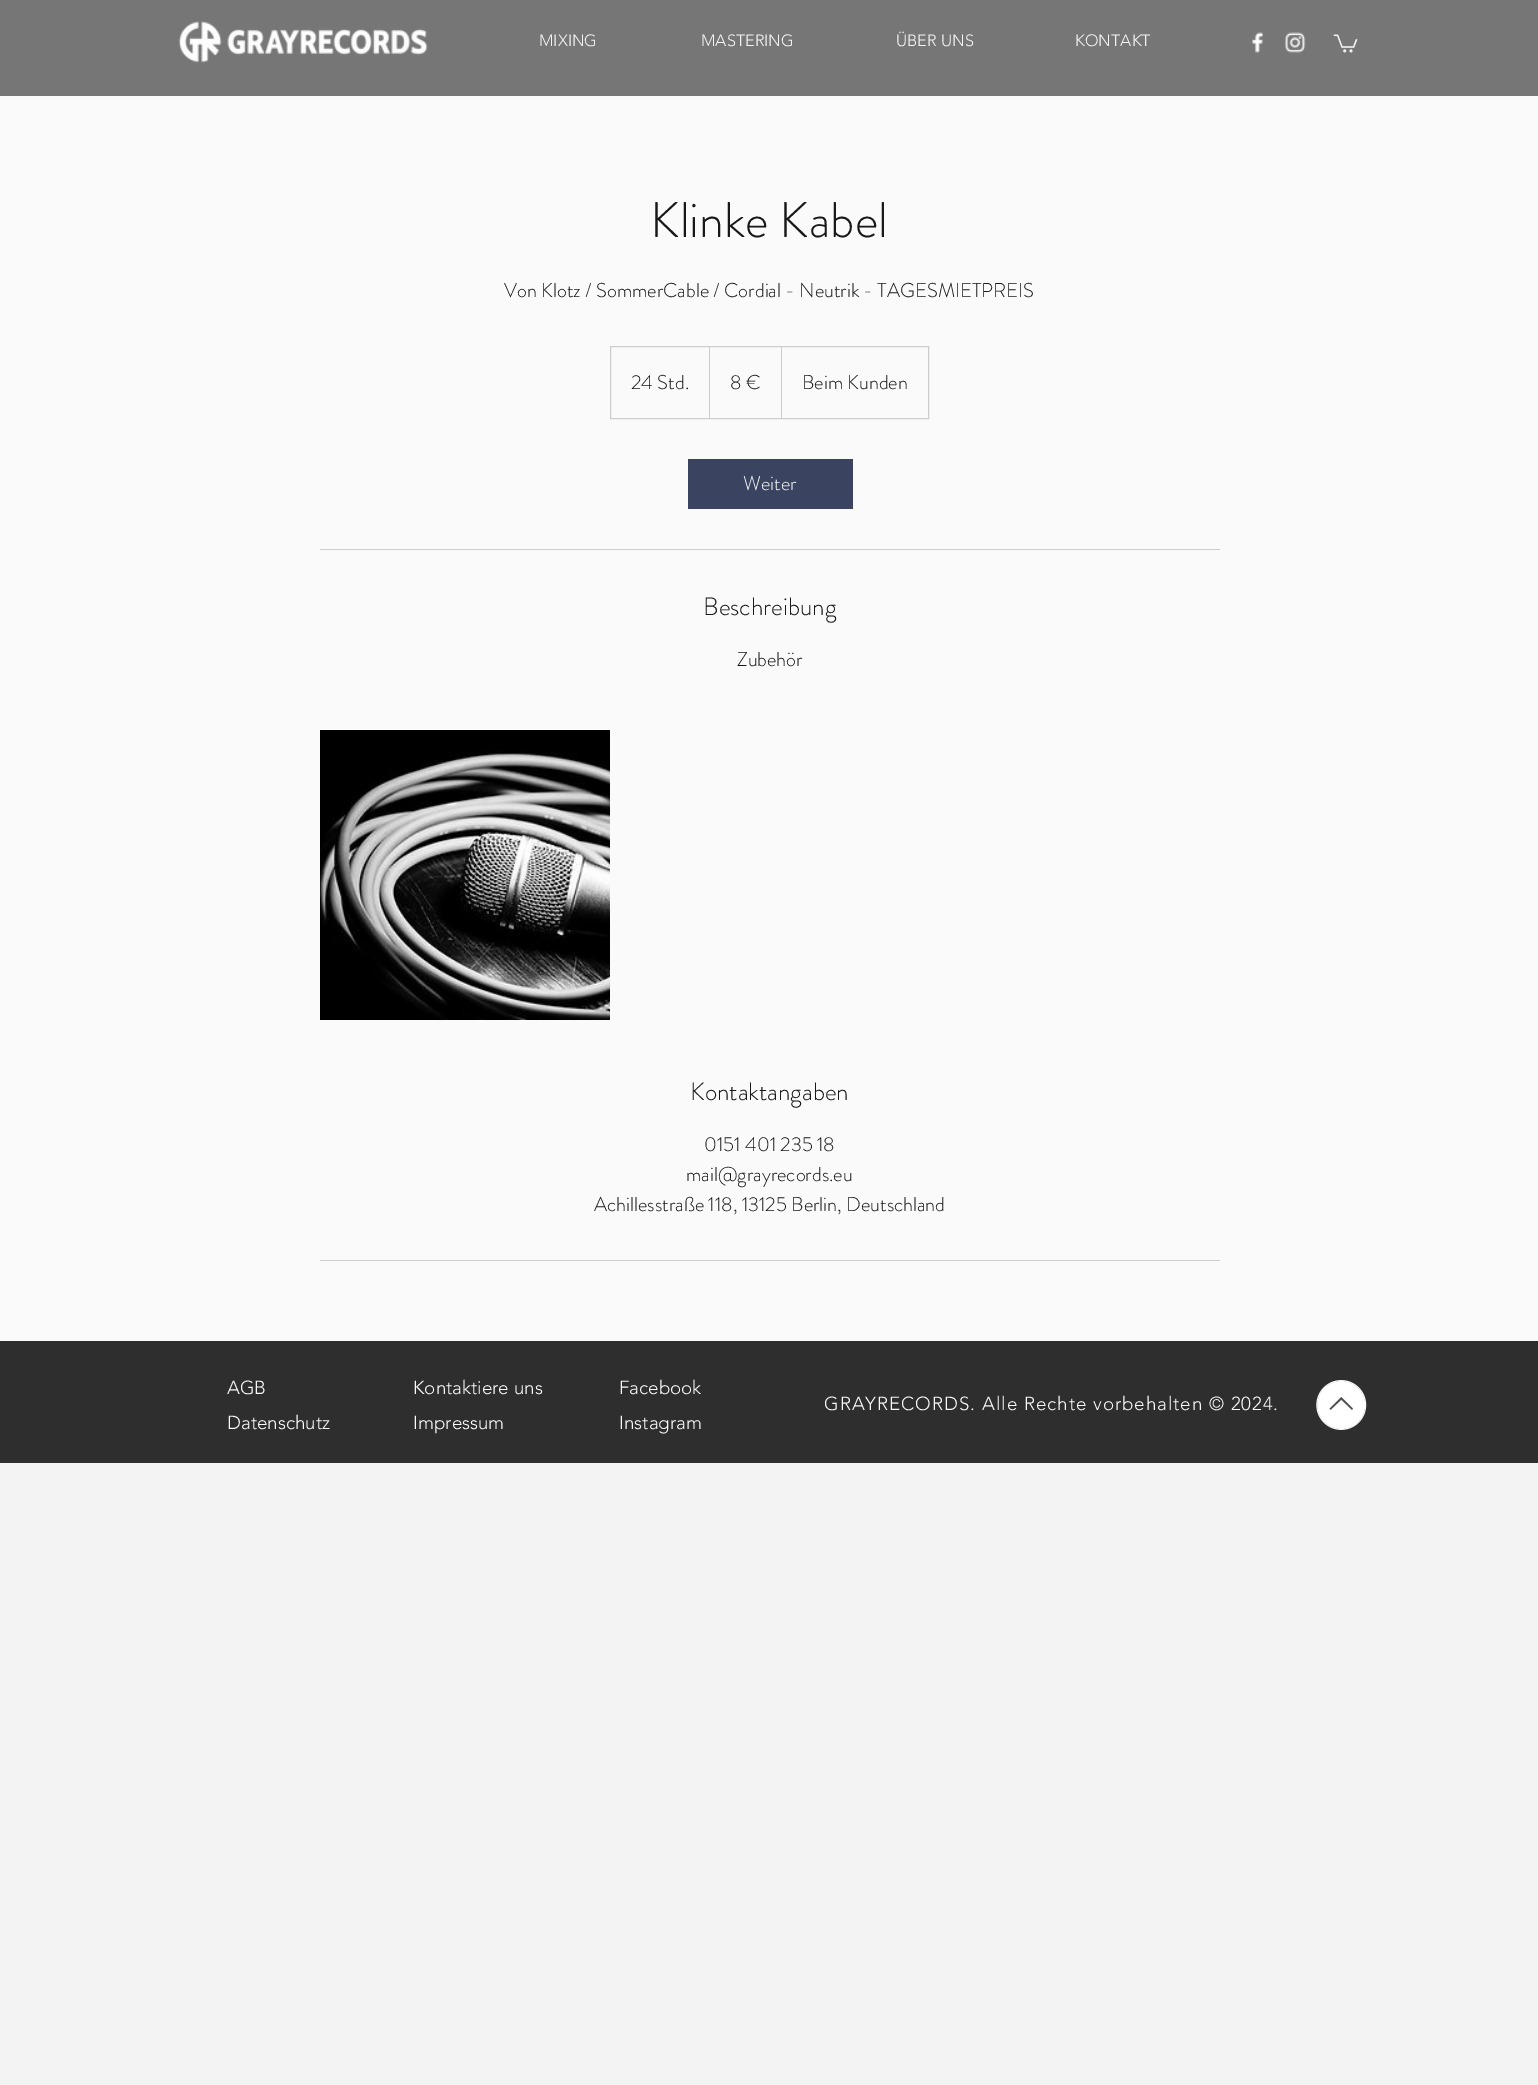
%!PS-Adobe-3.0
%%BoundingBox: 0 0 1538 2085
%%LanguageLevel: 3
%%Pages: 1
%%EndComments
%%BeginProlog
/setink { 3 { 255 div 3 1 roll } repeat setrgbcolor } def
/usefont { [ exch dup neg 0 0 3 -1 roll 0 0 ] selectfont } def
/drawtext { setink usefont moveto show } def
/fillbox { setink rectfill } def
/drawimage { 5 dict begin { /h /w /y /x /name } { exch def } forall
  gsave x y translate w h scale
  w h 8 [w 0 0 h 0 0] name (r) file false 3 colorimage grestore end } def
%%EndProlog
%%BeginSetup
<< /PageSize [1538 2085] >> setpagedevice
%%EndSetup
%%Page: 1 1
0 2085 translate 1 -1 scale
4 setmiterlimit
0 0 1538 2085 244 243 243 fillbox
0 0 1538 96 119 118 118 fillbox
(assets/img1.rgb) 178 21 250 42 drawimage
(MIXING) 539 46 /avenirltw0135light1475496-Light 16.25 244 243 243 drawtext
(MASTERING) 701 46 /avenirltw0135light1475496-Light 16.25 244 243 243 drawtext
(ÜBER UNS) 896 46 /avenirltw0135light1475496-Light 16.25 244 243 243 drawtext
(KONTAKT) 1075 46 /avenirltw0135light1475496-Light 16.25 244 243 243 drawtext
(assets/img2.rgb) 1252 32 11 21 drawimage
(assets/img3.rgb) 1285 32 21 21 drawimage
(assets/img4.rgb) 1333 34 25 19 drawimage
0 96 1538 1245 250 250 250 fillbox
(Klinke Kabel) 650 237 /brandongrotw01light-Light 50 24 24 24 drawtext
(Von Klotz / SommerCable / Cordial - Neutrik - TAGESMIETPREIS) 504 297 /brandongrotw01light-Light 20 24 24 24 drawtext
205 205 205 setink
610.5 346.5 318 72 rectstroke
(24 Std.) 631 389 /brandongrotw01light-Light 20 24 24 24 drawtext
205 205 205 setink
709 418 moveto 709 346 lineto 710 348 lineto 710 418 lineto closepath fill
(8 €) 730 389 /brandongrotw01light-Light 20 24 24 24 drawtext
205 205 205 setink
781 418 moveto 781 346 lineto 782 348 lineto 782 418 lineto closepath fill
(Beim Kunden) 802 389 /brandongrotw01light-Light 20 24 24 24 drawtext
688 459 165 50 58 67 95 fillbox
(Weiter) 743 490 /brandongrotw01light-Light 20 250 250 250 drawtext
320 549 900 1 205 205 205 fillbox
(Beschreibung) 703 615 /brandongrotw01light-Light 25 24 24 24 drawtext
(Zubehör) 737 666 /brandongrotw01light-Light 20 24 24 24 drawtext
(assets/img5.rgb) 320 730 290 20 drawimage
(assets/img6.rgb) 320 750 290 270 drawimage
(Kontaktangaben) 690 1100 /brandongrotw01light-Light 25 24 24 24 drawtext
(0151 401 235 18) 704 1151 /brandongrotw01light-Light 20 24 24 24 drawtext
(mail@grayrecords.eu) 686 1181 /brandongrotw01light-Light 20 24 24 24 drawtext
(Achillesstraße 118, 13125 Berlin, Deutschland) 594 1211 /brandongrotw01light-Light 20 24 24 24 drawtext
320 1260 900 1 205 205 205 fillbox
0 1341 1538 122 47 46 46 fillbox
(AGB) 227 1394 /avenirltw0135light1475496-Light 18.75 250 250 250 drawtext
(Datenschutz) 227 1429 /avenirltw0135light1475496-Light 18.75 250 250 250 drawtext
(Kontaktiere uns) 413 1394 /avenirltw0135light1475496-Light 18.75 250 250 250 drawtext
(Impressum) 413 1429 /avenirltw0135light1475496-Light 18.75 250 250 250 drawtext
(Facebook) 619 1394 /avenirltw0135light1475496-Light 18.75 250 250 250 drawtext
(Instagram) 619 1429 /avenirltw0135light1475496-Light 18.75 250 250 250 drawtext
824 1410 moveto 0.95 0 (GRAYRECORDS. Alle Rechte vorbehalten © 2024.) ashow
(assets/img7.rgb) 1316 1380 51 50 drawimage
showpage
%%EOF
